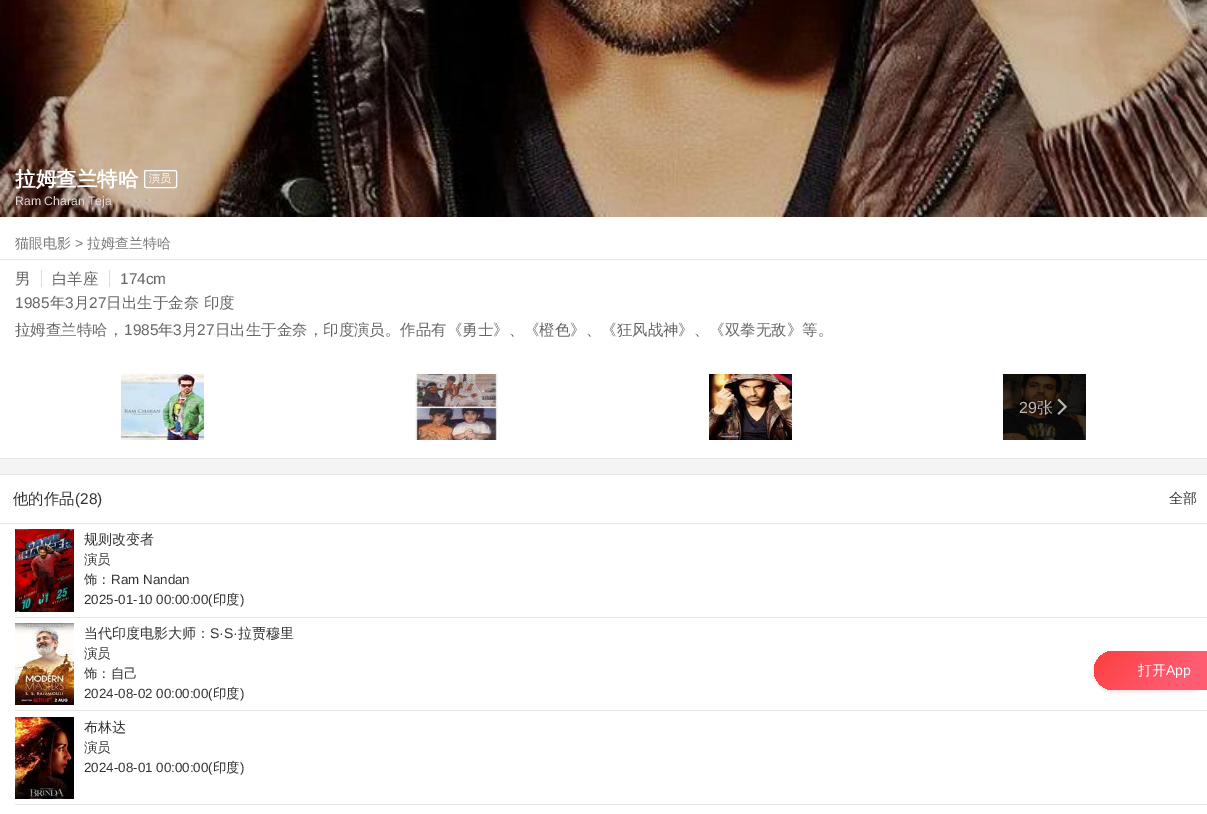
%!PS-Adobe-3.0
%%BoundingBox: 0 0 1207 814
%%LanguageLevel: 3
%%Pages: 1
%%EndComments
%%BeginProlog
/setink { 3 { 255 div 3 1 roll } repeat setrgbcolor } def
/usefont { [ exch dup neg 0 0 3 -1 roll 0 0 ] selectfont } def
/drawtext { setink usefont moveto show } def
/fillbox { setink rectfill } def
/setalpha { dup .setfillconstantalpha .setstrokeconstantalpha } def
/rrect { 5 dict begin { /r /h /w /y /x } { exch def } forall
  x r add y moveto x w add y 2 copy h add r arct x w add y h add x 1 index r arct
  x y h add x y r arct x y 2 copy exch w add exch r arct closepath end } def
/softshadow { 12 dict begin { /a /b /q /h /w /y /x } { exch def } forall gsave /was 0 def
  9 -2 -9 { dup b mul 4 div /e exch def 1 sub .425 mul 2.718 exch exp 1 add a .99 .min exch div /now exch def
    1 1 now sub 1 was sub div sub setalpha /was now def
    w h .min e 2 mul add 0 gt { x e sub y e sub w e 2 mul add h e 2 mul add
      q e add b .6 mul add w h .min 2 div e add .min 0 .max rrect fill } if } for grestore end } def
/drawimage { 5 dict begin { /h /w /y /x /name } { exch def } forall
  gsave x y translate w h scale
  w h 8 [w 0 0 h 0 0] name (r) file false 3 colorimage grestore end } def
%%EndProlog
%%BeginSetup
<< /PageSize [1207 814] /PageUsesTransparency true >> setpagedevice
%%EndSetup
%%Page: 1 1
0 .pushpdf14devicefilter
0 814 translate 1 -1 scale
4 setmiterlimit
0 0 1207 814 244 244 244 fillbox
0 217 1207 241 255 255 255 fillbox
(assets/img1.rgb) 0 0 1207 217 drawimage
(拉姆查兰特哈) 15 186 /WenQuanYiZenHei-Bold 20.5 255 255 255 drawtext
144.5 170.5 32 17 1.5 rrect stroke
(演员) 149 182 /WenQuanYiZenHei-Medium 11 255 255 255 drawtext
(Ram Charan Teja) 15 205 /LiberationSans-Regular 12.25 224 218 216 drawtext
(猫眼电影) 15 248 /WenQuanYiZenHei-Medium 14 119 119 119 drawtext
(>) 75 248 /LiberationSans-Regular 14 119 119 119 drawtext
(拉姆查兰特哈) 87 248 /WenQuanYiZenHei-Medium 14 119 119 119 drawtext
0 458 1207 1 229 229 229 fillbox
0 259 1207 1 230 230 230 fillbox
(男) 15 284 /WenQuanYiZenHei-Medium 15.45 102 102 102 drawtext
(白羊座) 52 284 /WenQuanYiZenHei-Medium 15.45 102 102 102 drawtext
41 270 1 17 221 221 221 fillbox
(174cm) 120 284 /LiberationSans-Regular 15.45 102 102 102 drawtext
109 270 1 17 221 221 221 fillbox
(1985) 15 308 /LiberationSans-Regular 15.45 102 102 102 drawtext
(年) 50 308 /WenQuanYiZenHei-Medium 15.45 102 102 102 drawtext
(3) 65 308 /LiberationSans-Regular 15.45 102 102 102 drawtext
(月) 74 308 /WenQuanYiZenHei-Medium 15.45 102 102 102 drawtext
(27) 89 308 /LiberationSans-Regular 15.45 102 102 102 drawtext
(日) 106 308 /WenQuanYiZenHei-Medium 15.45 102 102 102 drawtext
(出生于金奈 印度) 122 308 /WenQuanYiZenHei-Medium 15.45 102 102 102 drawtext
(拉姆查兰特哈，) 15 335 /WenQuanYiZenHei-Medium 15.45 102 102 102 drawtext
(1985) 124 335 /LiberationSans-Regular 15.45 102 102 102 drawtext
(年) 158 335 /WenQuanYiZenHei-Medium 15.45 102 102 102 drawtext
(3) 173 335 /LiberationSans-Regular 15.45 102 102 102 drawtext
(月) 182 335 /WenQuanYiZenHei-Medium 15.45 102 102 102 drawtext
(27) 197 335 /LiberationSans-Regular 15.45 102 102 102 drawtext
(日出生于金奈，印度演员。作品有《勇士》、《橙色》、《狂风战神》、《双拳无敌》等。) 215 335 /WenQuanYiZenHei-Medium 15.45 102 102 102 drawtext
(assets/img2.rgb) 121 374 83 66 drawimage
(assets/img3.rgb) 415 374 83 66 drawimage
(assets/img4.rgb) 709 374 83 66 drawimage
(assets/img5.rgb) 1003 374 83 66 drawimage
(29) 1019 413 /LiberationSans-Regular 16 187 184 181 drawtext
(张) 1037 413 /WenQuanYiZenHei-Medium 16 187 184 181 drawtext
(assets/img6.rgb) 1057 398 10 17 drawimage
0 475 1207 339 255 255 255 fillbox
0 474 1207 1 230 230 230 fillbox
0 523 1207 1 230 230 230 fillbox
(他的作品) 13 504 /WenQuanYiZenHei-Medium 15.45 51 51 51 drawtext
(\(28\)) 75 504 /LiberationSans-Regular 15.45 51 51 51 drawtext
(全部) 1169 503 /WenQuanYiZenHei-Medium 14 51 51 51 drawtext
15 617 1192 1 229 229 229 fillbox
(assets/img7.rgb) 15 529 59 83 drawimage
(规则改变者) 84 544 /WenQuanYiZenHei-Medium 14 51 51 51 drawtext
(演员) 84 564 /WenQuanYiZenHei-Medium 13.4 51 51 51 drawtext
(饰：) 84 584 /WenQuanYiZenHei-Medium 13.4 51 51 51 drawtext
(Ram Nandan) 111 584 /LiberationSans-Regular 13.4 51 51 51 drawtext
(2025-01-10 00:00:00\() 84 604 /LiberationSans-Regular 13.4 51 51 51 drawtext
(印度) 213 604 /WenQuanYiZenHei-Medium 13.4 51 51 51 drawtext
(\)) 240 604 /LiberationSans-Regular 13.4 51 51 51 drawtext
15 710 1192 1 229 229 229 fillbox
(assets/img8.rgb) 15 623 59 82 drawimage
(当代印度电影大师：) 84 638 /WenQuanYiZenHei-Medium 14 51 51 51 drawtext
(S·S·) 210 638 /LiberationSans-Regular 14 51 51 51 drawtext
(拉贾穆里) 238 638 /WenQuanYiZenHei-Medium 14 51 51 51 drawtext
(演员) 84 658 /WenQuanYiZenHei-Medium 13.4 51 51 51 drawtext
(饰：自己) 84 678 /WenQuanYiZenHei-Medium 13.4 51 51 51 drawtext
(2024-08-02 00:00:00\() 84 698 /LiberationSans-Regular 13.4 51 51 51 drawtext
(印度) 213 698 /WenQuanYiZenHei-Medium 13.4 51 51 51 drawtext
(\)) 240 698 /LiberationSans-Regular 13.4 51 51 51 drawtext
15 804 1192 1 229 229 229 fillbox
(assets/img9.rgb) 15 717 59 82 drawimage
(布林达) 84 732 /WenQuanYiZenHei-Medium 14 51 51 51 drawtext
(演员) 84 752 /WenQuanYiZenHei-Medium 13.4 51 51 51 drawtext
(2024-08-01 00:00:00\() 84 772 /LiberationSans-Regular 13.4 51 51 51 drawtext
(印度) 213 772 /WenQuanYiZenHei-Medium 13.4 51 51 51 drawtext
(\)) 240 772 /LiberationSans-Regular 13.4 51 51 51 drawtext
166 57 54 setink
1094 653 113 39 19.5 2 0.15 softshadow
gsave 1113.5 651 moveto 1207 651 lineto 1207 690 lineto 1113.5 690 lineto 1102.5 690 1094 681.5 1094 670.5 curveto 1094 659.5 1102.5 651 1113.5 651 curveto closepath clip newpath
<< /ShadingType 2 /ColorSpace /DeviceRGB /Coords [1112 633 1189 708] /Extend [true true] /Function << /FunctionType 3 /Domain [0 1] /Functions [<< /FunctionType 2 /Domain [0 1] /C0 [0.984 0.247 0.247] /C1 [1 0.361 0.447] /N 1 >> << /FunctionType 2 /Domain [0 1] /C0 [1 0.361 0.447] /C1 [1 0.361 0.447] /N 1 >>] /Bounds [0.75] /Encode [0 1 0 1] >> >> shfill grestore
(打开) 1138 675 /WenQuanYiZenHei-Medium 14 255 255 255 drawtext
(App) 1166 675 /LiberationSans-Regular 14 255 255 255 drawtext
.poppdf14devicefilter showpage
%%EOF
